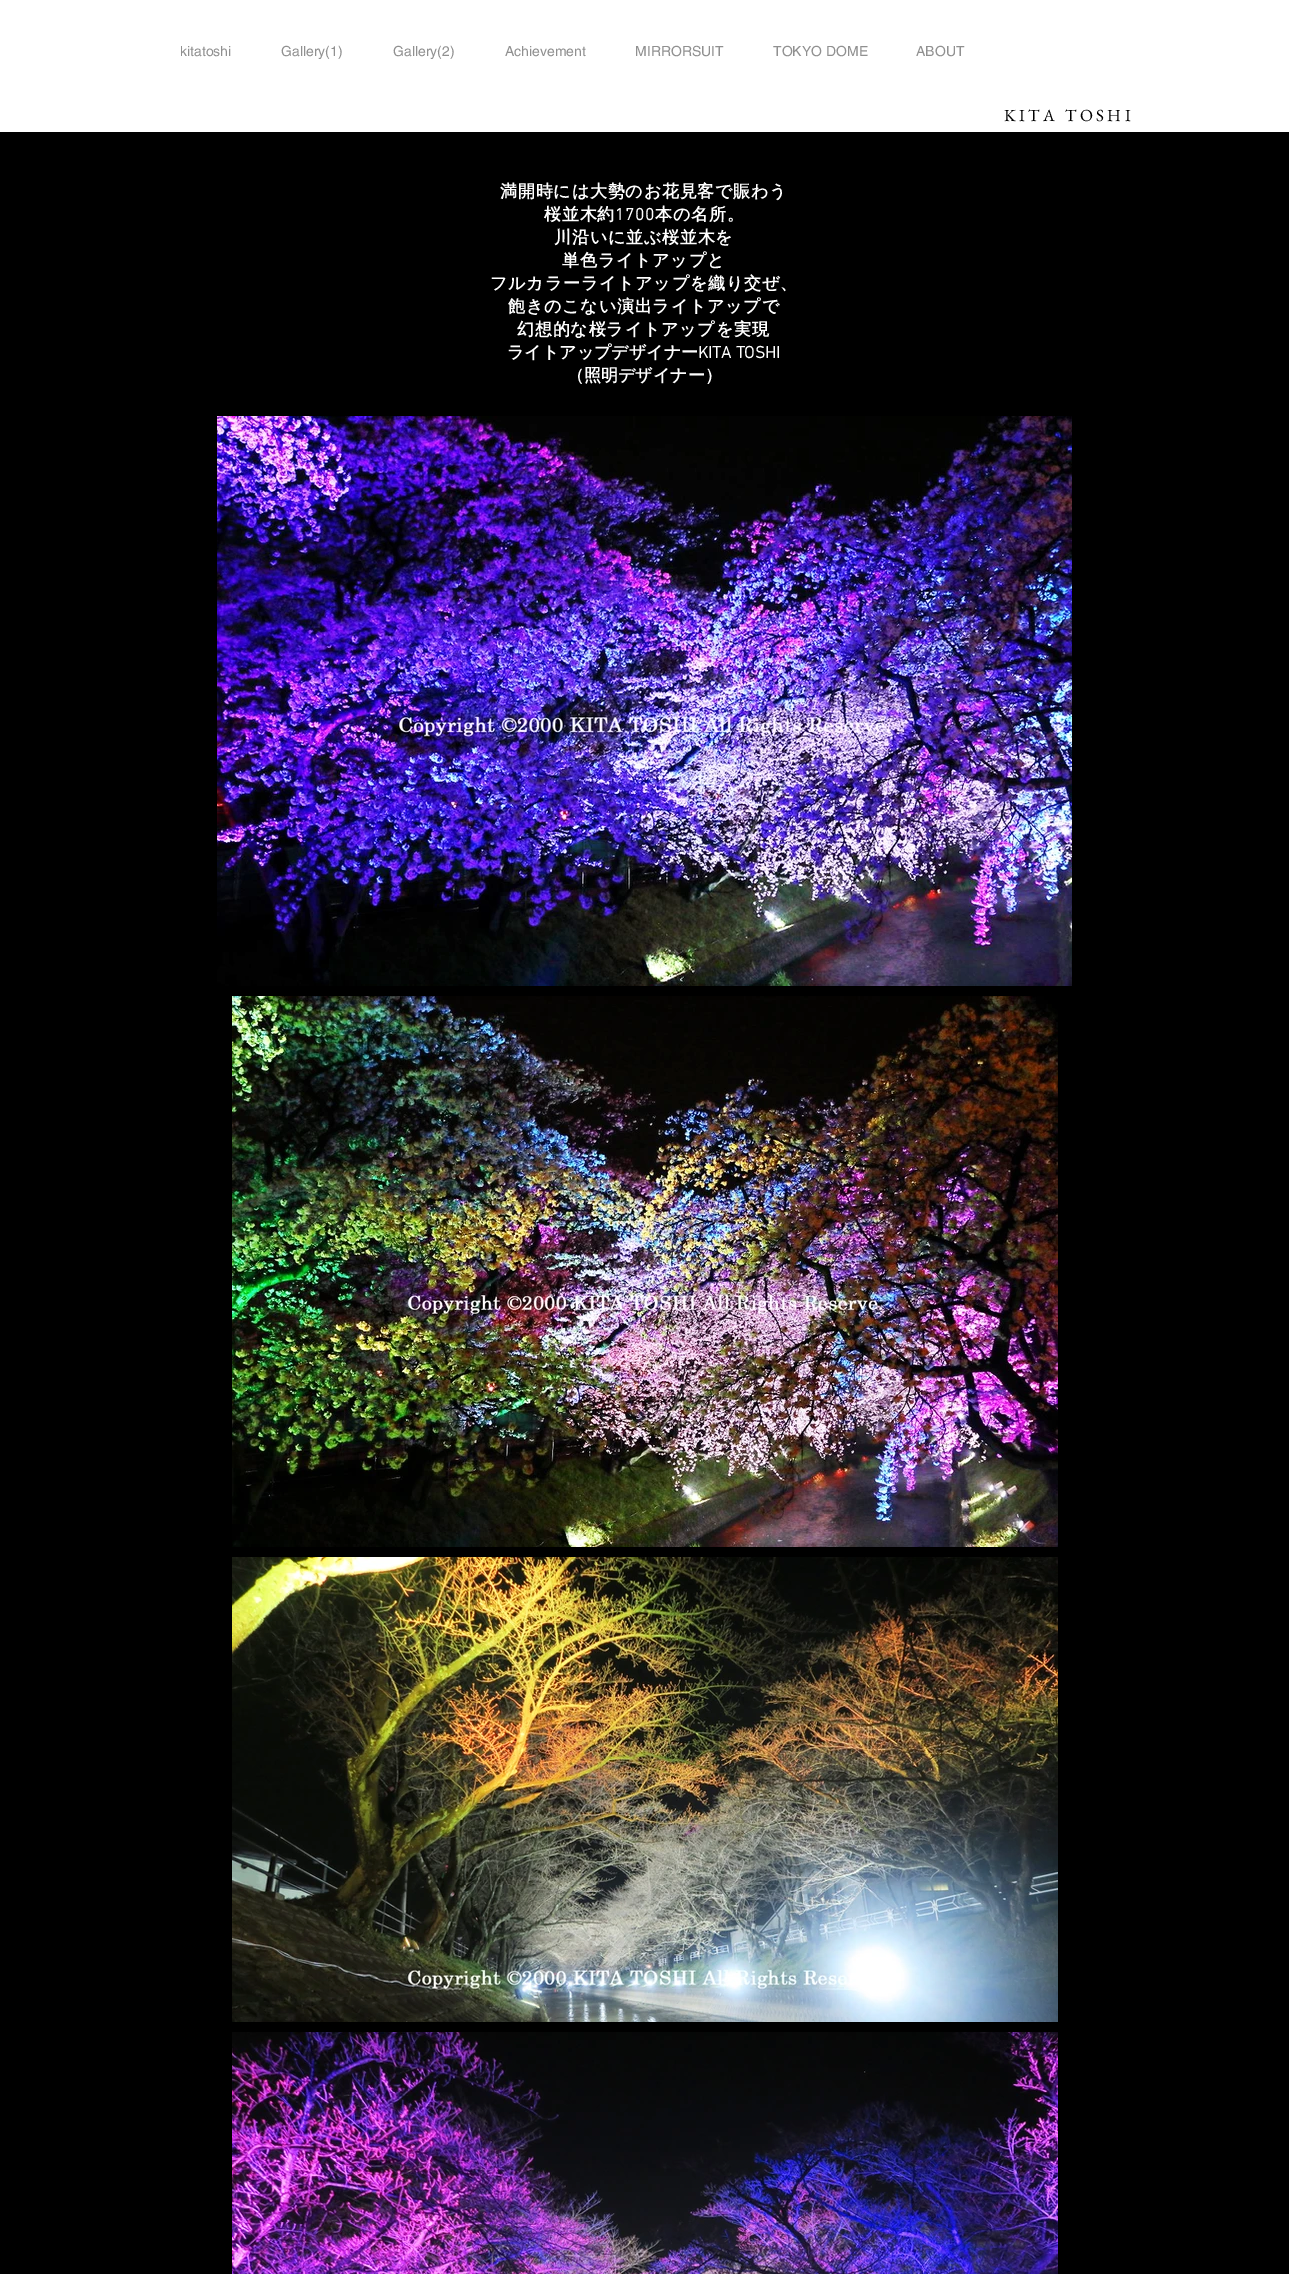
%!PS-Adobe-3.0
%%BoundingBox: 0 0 1289 2274
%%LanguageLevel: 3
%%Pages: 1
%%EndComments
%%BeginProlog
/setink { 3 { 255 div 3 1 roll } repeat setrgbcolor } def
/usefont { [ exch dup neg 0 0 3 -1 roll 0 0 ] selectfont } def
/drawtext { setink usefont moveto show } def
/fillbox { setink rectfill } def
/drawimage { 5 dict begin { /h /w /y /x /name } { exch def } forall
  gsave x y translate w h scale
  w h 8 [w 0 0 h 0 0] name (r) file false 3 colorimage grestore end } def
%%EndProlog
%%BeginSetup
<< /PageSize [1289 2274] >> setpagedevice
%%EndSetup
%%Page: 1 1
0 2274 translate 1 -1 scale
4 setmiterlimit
0 0 1289 2274 0 0 0 fillbox
0 0 1289 132 255 255 255 fillbox
(kitatoshi) 180 56 /helvetica-Regular 14 144 144 144 drawtext
(Gallery\(1\)) 281 56 /helvetica-Regular 14 144 144 144 drawtext
(Gallery\(2\)) 393 56 /helvetica-Regular 14 144 144 144 drawtext
(Achievement) 505 56 /helvetica-Regular 14 144 144 144 drawtext
(MIRRORSUIT) 635 56 /helvetica-Regular 14 144 144 144 drawtext
(TOKYO DOME) 773 56 /helvetica-Regular 14 144 144 144 drawtext
(ABOUT) 916 56 /helvetica-Regular 14 144 144 144 drawtext
/EBGaramond-Regular 17 usefont
0 0 0 setink
1004 121 moveto 3.4 0 (KITA TOSHI) ashow
/WenQuanYiZenHei-Bold 17 usefont
255 255 255 setink
500 197 moveto 0.8 0 (満開時には大勢のお花見客で賑わう) ashow
544 220 moveto 0.8 0 (桜並木約) ashow
/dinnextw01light-Bold 17 usefont
615 220 moveto 0.8 0 (1700) ashow
/WenQuanYiZenHei-Bold 17 usefont
655 220 moveto 0.8 0 (本の名所。) ashow
554 243 moveto 0.8 0 (川沿いに並ぶ桜並木を) ashow
562 266 moveto 0.8 0 (単色ライトアップと) ashow
490 289 moveto 0.8 0 (フルカラーライトアップを織り交ぜ、) ashow
508 312 moveto 0.8 0 (飽きのこない演出ライトアップで) ashow
517 335 moveto 0.8 0 (幻想的な桜ライトアップを実現) ashow
(ライトアップデザイナー) 507 358 /WenQuanYiZenHei-Bold 17 255 255 255 drawtext
(KITA TOSHI) 698 358 /dinnextw01light-Bold 17 255 255 255 drawtext
(（照明デザイナー）) 567 381 /WenQuanYiZenHei-Bold 17 255 255 255 drawtext
(assets/img1.rgb) 217 416 855 570 drawimage
(assets/img2.rgb) 232 996 826 551 drawimage
(assets/img3.rgb) 232 1557 826 465 drawimage
(assets/img4.rgb) 232 2032 826 242 drawimage
showpage
%%EOF
